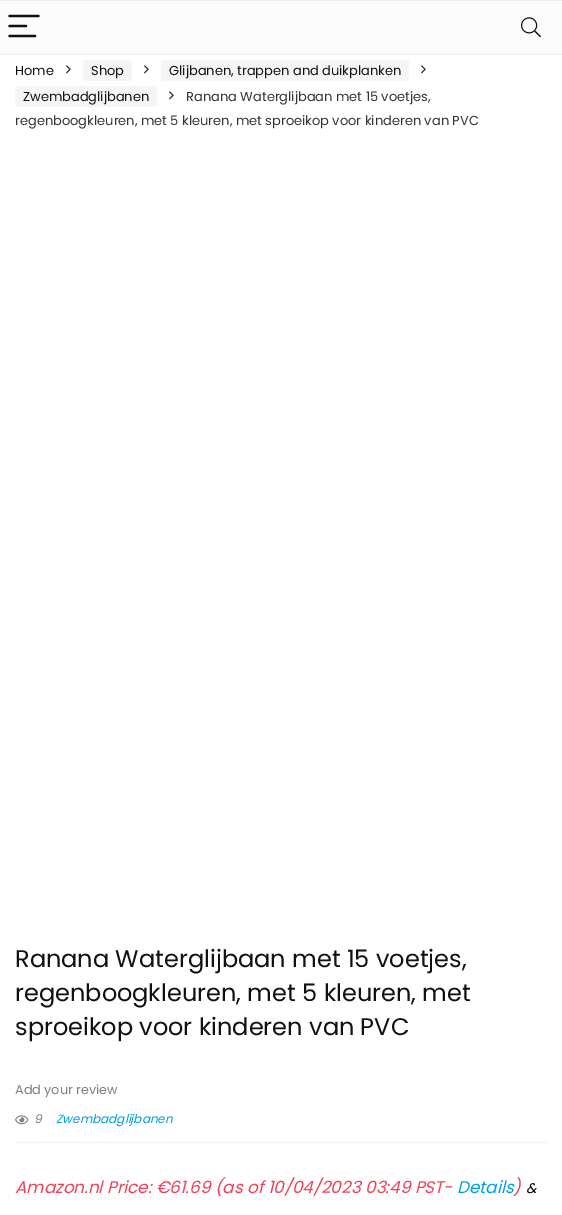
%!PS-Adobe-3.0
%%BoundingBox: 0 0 562 1215
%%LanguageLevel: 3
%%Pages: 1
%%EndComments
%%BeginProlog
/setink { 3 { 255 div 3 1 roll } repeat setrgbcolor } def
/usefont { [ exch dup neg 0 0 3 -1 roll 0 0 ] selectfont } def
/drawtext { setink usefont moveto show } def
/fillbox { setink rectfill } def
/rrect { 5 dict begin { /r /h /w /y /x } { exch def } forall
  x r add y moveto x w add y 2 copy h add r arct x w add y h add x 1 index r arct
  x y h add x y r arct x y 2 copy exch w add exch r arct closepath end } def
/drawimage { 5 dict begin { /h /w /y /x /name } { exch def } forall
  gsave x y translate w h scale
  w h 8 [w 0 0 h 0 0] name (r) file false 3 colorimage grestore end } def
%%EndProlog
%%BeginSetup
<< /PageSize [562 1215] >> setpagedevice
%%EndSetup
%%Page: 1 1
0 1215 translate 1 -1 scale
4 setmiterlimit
0 0 562 1215 255 255 255 fillbox
0 1 562 53 252 252 252 fillbox
0 0 562 1 238 238 238 fillbox
0 54 562 1 238 238 238 fillbox
17 17 17 setink
2.2 setlinewidth
1 setlinecap
9.5 16 moveto 38.5 16 lineto 9.5 26 moveto 26 26 lineto 9.5 36 moveto 35 36 lineto stroke
(assets/img1.rgb) 521 17 20 21 drawimage
(Home) 15 75 /Poppins-Regular 13 17 17 17 drawtext
(assets/img2.rgb) 66 65 5 9 drawimage
245 245 245 setink
83 60 49 21 3 rrect fill
(Shop) 91 75 /Poppins-Regular 13 17 17 17 drawtext
(assets/img2.rgb) 144 65 5 9 drawimage
245 245 245 setink
161 60 248 21 3 rrect fill
(Glijbanen, trappen and duikplanken) 169 75 /Poppins-Regular 13 17 17 17 drawtext
(assets/img2.rgb) 421 65 5 9 drawimage
245 245 245 setink
15 86 142 21 3 rrect fill
(Zwembadglijbanen) 23 101 /Poppins-Regular 13 17 17 17 drawtext
(assets/img2.rgb) 169 91 5 9 drawimage
(Ranana Waterglijbaan met 15 voetjes,) 186 101 /Poppins-Regular 13 51 51 51 drawtext
(regenboogkleuren, met 5 kleuren, met sproeikop voor kinderen van PVC) 15 125 /Poppins-Regular 13 51 51 51 drawtext
(Ranana Waterglijbaan met 15 voetjes,) 15 967 /Poppins-Regular 24 17 17 17 drawtext
(regenboogkleuren, met 5 kleuren, met) 15 1001 /Poppins-Regular 24 17 17 17 drawtext
(sproeikop voor kinderen van PVC) 15 1035 /Poppins-Regular 24 17 17 17 drawtext
(Add your review) 15 1094 /Poppins-Regular 12.75 128 128 128 drawtext
(assets/img3.rgb) 15 1115 14 10 drawimage
(9) 34 1123 /Poppins-Italic 12 128 128 128 drawtext
(Zwembadglijbanen) 56 1123 /Poppins-Italic 12 1 159 222 drawtext
15 1142 532 1 240 240 240 fillbox
(Amazon.nl Price: €61.69 \(as of 10/04/2023 03:49 PST-) 15 1193 /Poppins-Italic 16.8 240 64 87 drawtext
(Details) 457 1193 /Poppins-Italic 16.8 1 159 222 drawtext
(\)) 513 1193 /Poppins-Italic 16.8 240 64 87 drawtext
(&) 526 1193 /Poppins-Italic 14 0 0 0 drawtext
showpage
%%EOF
